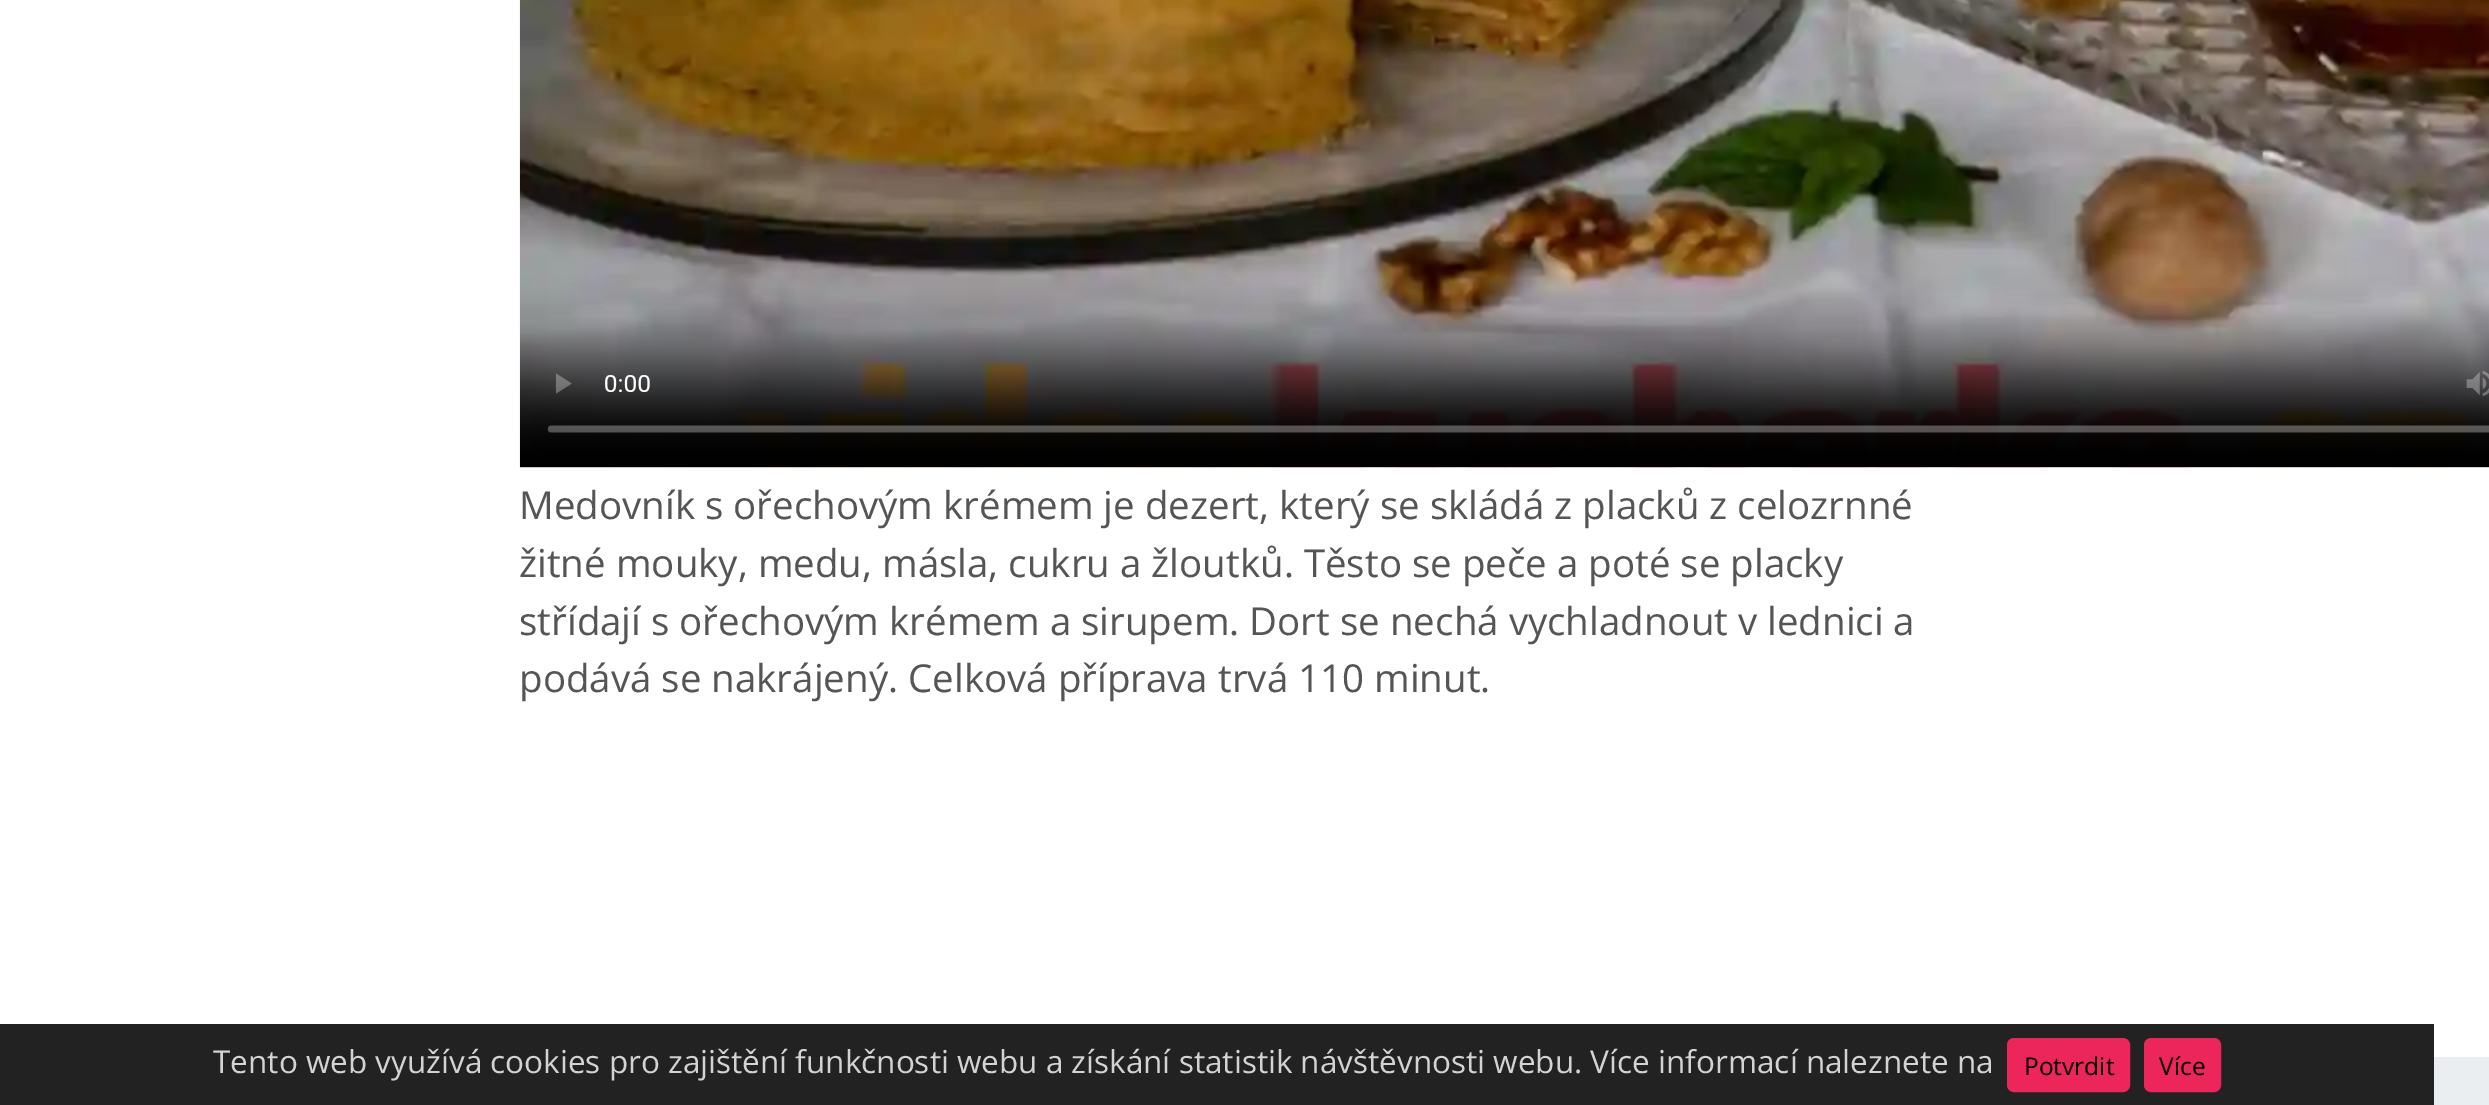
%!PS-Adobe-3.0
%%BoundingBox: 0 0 2489 1105
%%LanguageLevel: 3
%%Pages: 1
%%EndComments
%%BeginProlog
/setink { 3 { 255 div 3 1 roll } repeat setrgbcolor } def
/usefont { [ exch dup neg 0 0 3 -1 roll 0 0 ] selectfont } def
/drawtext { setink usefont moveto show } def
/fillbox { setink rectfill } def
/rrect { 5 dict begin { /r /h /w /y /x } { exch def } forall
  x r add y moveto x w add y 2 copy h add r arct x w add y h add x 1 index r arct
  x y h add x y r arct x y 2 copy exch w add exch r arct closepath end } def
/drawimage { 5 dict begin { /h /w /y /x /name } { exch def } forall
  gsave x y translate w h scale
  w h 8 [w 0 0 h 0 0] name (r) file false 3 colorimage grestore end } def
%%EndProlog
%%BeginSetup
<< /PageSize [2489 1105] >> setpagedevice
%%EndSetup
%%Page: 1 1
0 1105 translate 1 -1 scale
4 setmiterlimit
0 0 2489 1105 255 255 255 fillbox
(assets/img1.rgb) 519 0 1970 468 drawimage
(Medovník s ořechovým krémem je dezert, který se skládá z placků z celozrnné) 519 519 /OpenSans-Regular 38.5 85 85 85 drawtext
(žitné mouky, medu, másla, cukru a žloutků. Těsto se peče a poté se placky) 519 577 /OpenSans-Regular 38.5 85 85 85 drawtext
(střídají s ořechovým krémem a sirupem. Dort se nechá vychladnout v lednici a) 519 635 /OpenSans-Regular 38.5 85 85 85 drawtext
(podává se nakrájený. Celková příprava trvá 110 minut.) 519 692 /OpenSans-Regular 38.5 85 85 85 drawtext
0 1024 2434 81 34 34 34 fillbox
(Tento web využívá cookies pro zajištění funkčnosti webu a získání statistik návštěvnosti webu. Více informací naleznete na) 213 1073 /OpenSans-Regular 31.5 211 211 211 drawtext
236 37 90 setink
2008 1039 121 52 6 rrect gsave fill grestore
2 setlinewidth
stroke
(Potvrdit) 2024 1075 /OpenSans-Regular 24.5 0 0 0 drawtext
236 37 90 setink
2145 1039 75 52 6 rrect gsave fill grestore
stroke
(Více) 2159 1075 /OpenSans-Regular 24.5 0 0 0 drawtext
2434 1057 55 48 235 238 240 fillbox
showpage
%%EOF
